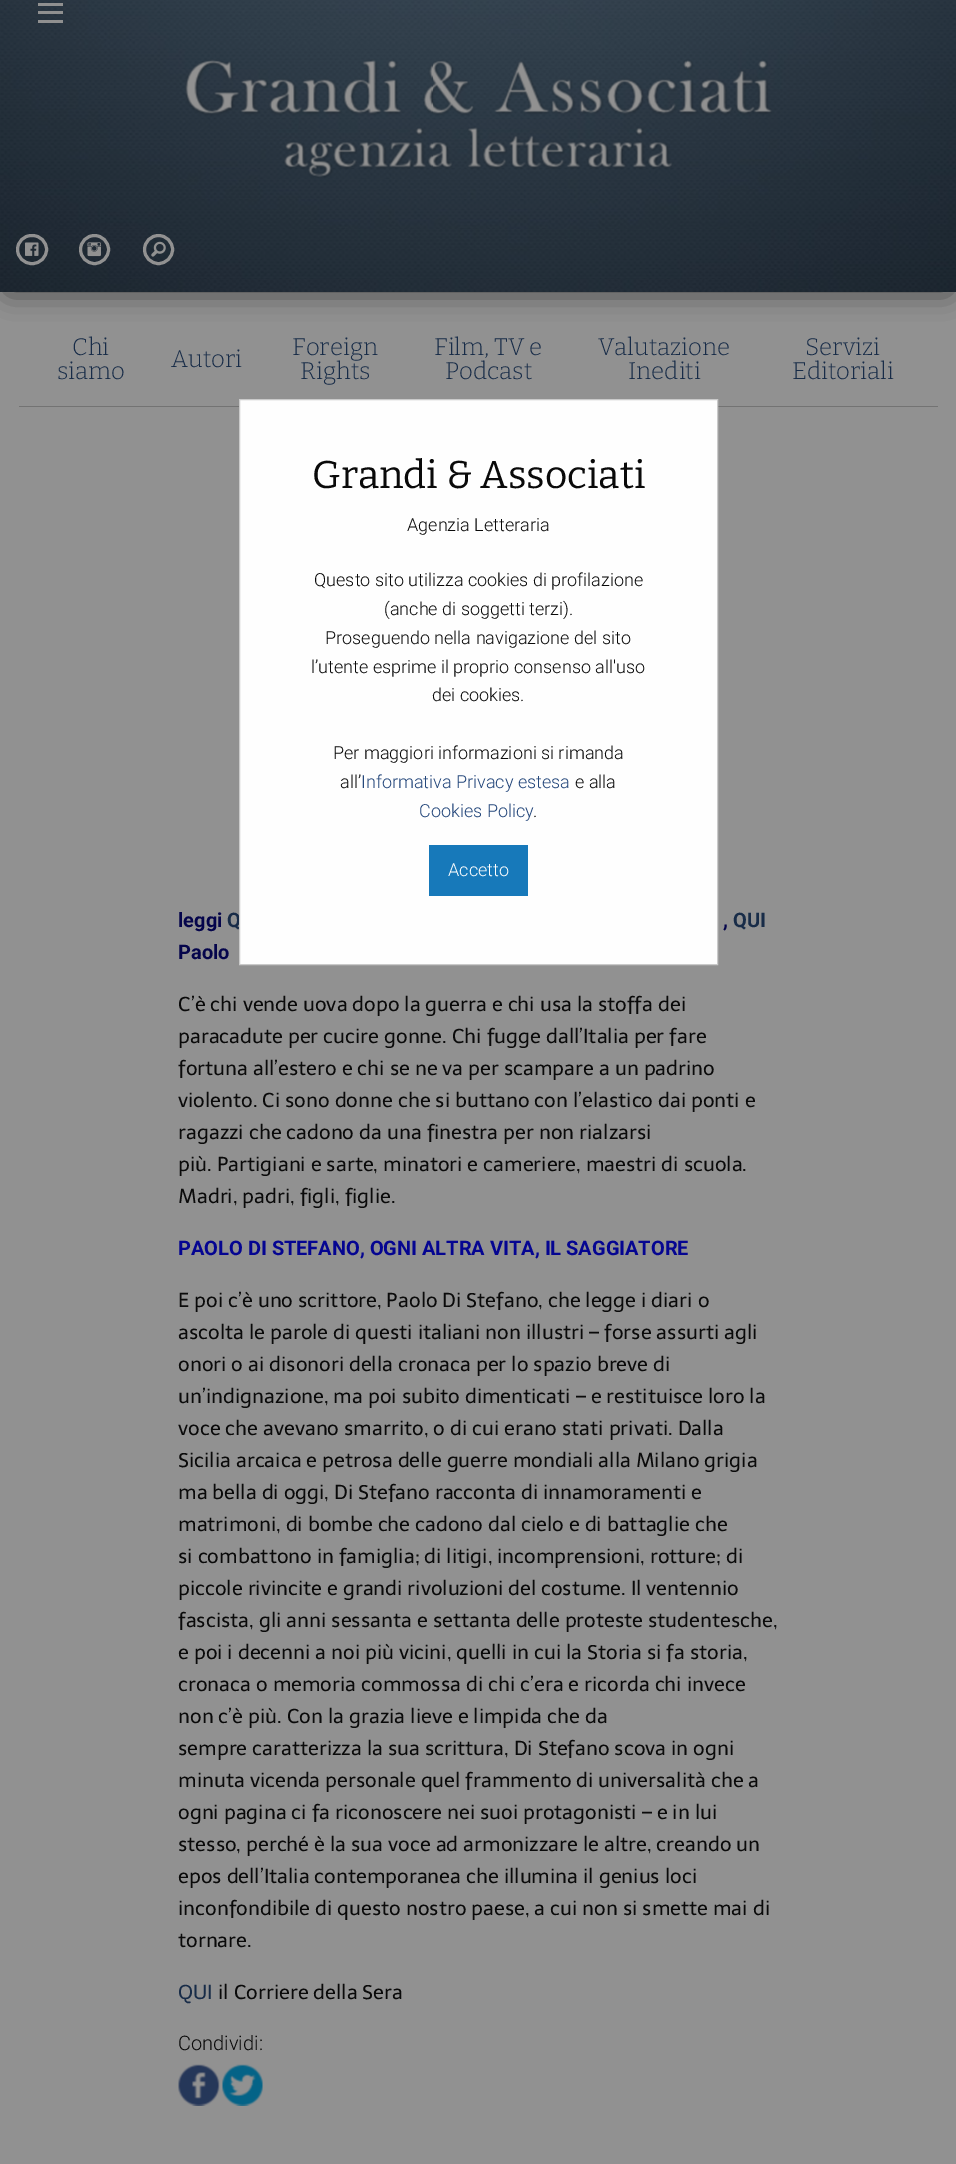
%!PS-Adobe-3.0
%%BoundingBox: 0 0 956 2164
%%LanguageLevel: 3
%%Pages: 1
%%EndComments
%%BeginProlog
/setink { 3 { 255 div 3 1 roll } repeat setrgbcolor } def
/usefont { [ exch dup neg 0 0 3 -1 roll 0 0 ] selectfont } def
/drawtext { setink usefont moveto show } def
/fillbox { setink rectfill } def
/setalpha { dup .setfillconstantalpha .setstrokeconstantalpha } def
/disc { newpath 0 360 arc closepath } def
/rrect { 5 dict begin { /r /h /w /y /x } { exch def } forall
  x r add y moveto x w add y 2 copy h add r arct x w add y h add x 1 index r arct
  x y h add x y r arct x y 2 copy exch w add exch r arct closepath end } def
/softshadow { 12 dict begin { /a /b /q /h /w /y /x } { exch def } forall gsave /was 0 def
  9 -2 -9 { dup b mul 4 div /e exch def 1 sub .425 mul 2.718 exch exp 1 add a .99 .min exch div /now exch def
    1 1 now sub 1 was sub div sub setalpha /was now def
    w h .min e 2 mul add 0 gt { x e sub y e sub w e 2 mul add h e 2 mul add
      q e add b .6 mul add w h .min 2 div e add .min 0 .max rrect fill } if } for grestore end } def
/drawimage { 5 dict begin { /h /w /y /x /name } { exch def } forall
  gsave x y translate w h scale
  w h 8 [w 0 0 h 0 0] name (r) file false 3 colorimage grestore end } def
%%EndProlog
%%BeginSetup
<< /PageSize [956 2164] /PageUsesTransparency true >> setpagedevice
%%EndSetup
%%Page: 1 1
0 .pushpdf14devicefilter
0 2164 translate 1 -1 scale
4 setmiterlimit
0 0 956 2164 145 145 145 fillbox
5 5 5 setink
9 -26 939 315 0 14.5 0.75 softshadow
(assets/img1.rgb) 0 0 956 292 drawimage
38 20 25 3 144 144 144 fillbox
38 11 25 3 144 144 144 fillbox
38 3 25 3 144 144 144 fillbox
(assets/img2.rgb) 185 59 587 119 drawimage
145 145 145 setink
3 setlinewidth
17.5 235.5 29 28 14 rrect stroke
(assets/img3.rgb) 25 242 14 14 drawimage
94.5 249.5 14 disc stroke
(assets/img4.rgb) 87 242 14 15 drawimage
158.5 249.5 14 disc stroke
(assets/img5.rgb) 151 241 15 16 drawimage
19 406 919 1 115 115 115 fillbox
(Chi) 72 355 /Bitter-Light 24 24 44 72 drawtext
(siamo) 57 379 /Bitter-Light 24 24 44 72 drawtext
(Autori) 171 367 /Bitter-Light 24 24 44 72 drawtext
(Foreign) 292 355 /Bitter-Light 24 24 44 72 drawtext
(Rights) 300 379 /Bitter-Light 24 24 44 72 drawtext
(Film, TV e) 434 355 /Bitter-Light 24 24 44 72 drawtext
(Podcast) 445 379 /Bitter-Light 24 24 44 72 drawtext
(Valutazione) 598 355 /Bitter-Light 24 24 44 72 drawtext
(Inediti) 628 379 /Bitter-Light 24 24 44 72 drawtext
(Servizi) 805 355 /Bitter-Light 24 24 44 72 drawtext
(Editoriali) 792 379 /Bitter-Light 24 24 44 72 drawtext
(leggi) 178 927 /Roboto-Bold 20 5 5 75 drawtext
(Q) 227 927 /Roboto-Bold 20 24 44 72 drawtext
(,) 723 927 /Roboto-Bold 20 5 5 75 drawtext
(QUI) 733 927 /Roboto-Bold 20 24 44 72 drawtext
(Paolo) 178 959 /Roboto-Bold 20 5 5 75 drawtext
(C’è chi vende uova dopo la guerra e chi usa la stoffa dei) 178 1011 /Telex-Regular 20 10 10 10 drawtext
(paracadute per cucire gonne. Chi fugge dall’Italia per fare) 178 1043 /Telex-Regular 20 10 10 10 drawtext
(fortuna all’estero e chi se ne va per scampare a un padrino) 178 1075 /Telex-Regular 20 10 10 10 drawtext
(violento. Ci sono donne che si buttano con l’elastico dai ponti e) 178 1107 /Telex-Regular 20 10 10 10 drawtext
(ragazzi che cadono da una finestra per non rialzarsi) 178 1139 /Telex-Regular 20 10 10 10 drawtext
(più. Partigiani e sarte, minatori e cameriere, maestri di scuola.) 178 1171 /Telex-Regular 20 10 10 10 drawtext
(Madri, padri, figli, figlie.) 178 1203 /Telex-Regular 20 10 10 10 drawtext
(PAOLO DI STEFANO, OGNI ALTRA VITA, IL SAGGIATORE) 178 1255 /Roboto-Bold 20 5 5 145 drawtext
(E poi c’è uno scrittore, Paolo Di Stefano, che legge i diari o) 178 1307 /Telex-Regular 20 10 10 10 drawtext
(ascolta le parole di questi italiani non illustri – forse assurti agli) 178 1339 /Telex-Regular 20 10 10 10 drawtext
(onori o ai disonori della cronaca per lo spazio breve di) 178 1371 /Telex-Regular 20 10 10 10 drawtext
(un’indignazione, ma poi subito dimenticati – e restituisce loro la) 178 1403 /Telex-Regular 20 10 10 10 drawtext
(voce che avevano smarrito, o di cui erano stati privati. Dalla) 178 1435 /Telex-Regular 20 10 10 10 drawtext
(Sicilia arcaica e petrosa delle guerre mondiali alla Milano grigia) 178 1467 /Telex-Regular 20 10 10 10 drawtext
(ma bella di oggi, Di Stefano racconta di innamoramenti e) 178 1499 /Telex-Regular 20 10 10 10 drawtext
(matrimoni, di bombe che cadono dal cielo e di battaglie che) 178 1531 /Telex-Regular 20 10 10 10 drawtext
(si combattono in famiglia; di litigi, incomprensioni, rotture; di) 178 1563 /Telex-Regular 20 10 10 10 drawtext
(piccole rivincite e grandi rivoluzioni del costume. Il ventennio) 178 1595 /Telex-Regular 20 10 10 10 drawtext
(fascista, gli anni sessanta e settanta delle proteste studentesche,) 178 1627 /Telex-Regular 20 10 10 10 drawtext
(e poi i decenni a noi più vicini, quelli in cui la Storia si fa storia,) 178 1659 /Telex-Regular 20 10 10 10 drawtext
(cronaca o memoria commossa di chi c’era e ricorda chi invece) 178 1691 /Telex-Regular 20 10 10 10 drawtext
(non c’è più. Con la grazia lieve e limpida che da) 178 1723 /Telex-Regular 20 10 10 10 drawtext
(sempre caratterizza la sua scrittura, Di Stefano scova in ogni) 178 1755 /Telex-Regular 20 10 10 10 drawtext
(minuta vicenda personale quel frammento di universalità che a) 178 1787 /Telex-Regular 20 10 10 10 drawtext
(ogni pagina ci fa riconoscere nei suoi protagonisti – e in lui) 178 1819 /Telex-Regular 20 10 10 10 drawtext
(stesso, perché è la sua voce ad armonizzare le altre, creando un) 178 1851 /Telex-Regular 20 10 10 10 drawtext
(epos dell’Italia contemporanea che illumina il genius loci) 178 1883 /Telex-Regular 20 10 10 10 drawtext
(inconfondibile di questo nostro paese, a cui non si smette mai di) 178 1915 /Telex-Regular 20 10 10 10 drawtext
(tornare.) 178 1947 /Telex-Regular 20 10 10 10 drawtext
(QUI) 178 1999 /Telex-Regular 20 24 44 72 drawtext
(il Corriere della Sera) 218 1999 /Telex-Regular 20 10 10 10 drawtext
(Condividi:) 178 2050 /Roboto-Light 20 10 10 10 drawtext
(assets/img6.rgb) 178 2064 42 42 drawimage
(assets/img7.rgb) 222 2064 41 42 drawimage
254 254 254 setink
239.5 399.5 moveto 717.5 399.5 lineto 717.5 964.5 lineto 239.5 964.5 lineto closepath gsave fill grestore
202 202 202 setink
1 setlinewidth
stroke
(Grandi & Associati) 312 488 /Bitter-Regular 38.75 10 10 10 drawtext
(Agenzia Letteraria) 407 531 /Roboto-Light 18 10 10 10 drawtext
(Questo sito utilizza cookies di profilazione) 314 586 /Roboto-Light 18 10 10 10 drawtext
(\(anche di soggetti terzi\).) 384 615 /Roboto-Light 18 10 10 10 drawtext
(Proseguendo nella navigazione del sito) 325 644 /Roboto-Light 18 10 10 10 drawtext
(l’utente esprime il proprio consenso all'uso) 311 673 /Roboto-Light 18 10 10 10 drawtext
(dei cookies.) 432 701 /Roboto-Light 18 10 10 10 drawtext
(Per maggiori informazioni si rimanda) 333 759 /Roboto-Light 18 10 10 10 drawtext
(all’) 340 788 /Roboto-Light 18 10 10 10 drawtext
(Informativa Privacy estesa) 361 788 /Roboto-Light 18 36 71 123 drawtext
(e alla) 575 788 /Roboto-Light 18 10 10 10 drawtext
(Cookies Policy) 419 817 /Roboto-Light 18 36 71 123 drawtext
(.) 533 817 /Roboto-Light 18 10 10 10 drawtext
429 845 99 51 23 121 186 fillbox
(Accetto) 448 876 /Roboto-Light 18 254 254 254 drawtext
.poppdf14devicefilter showpage
%%EOF
